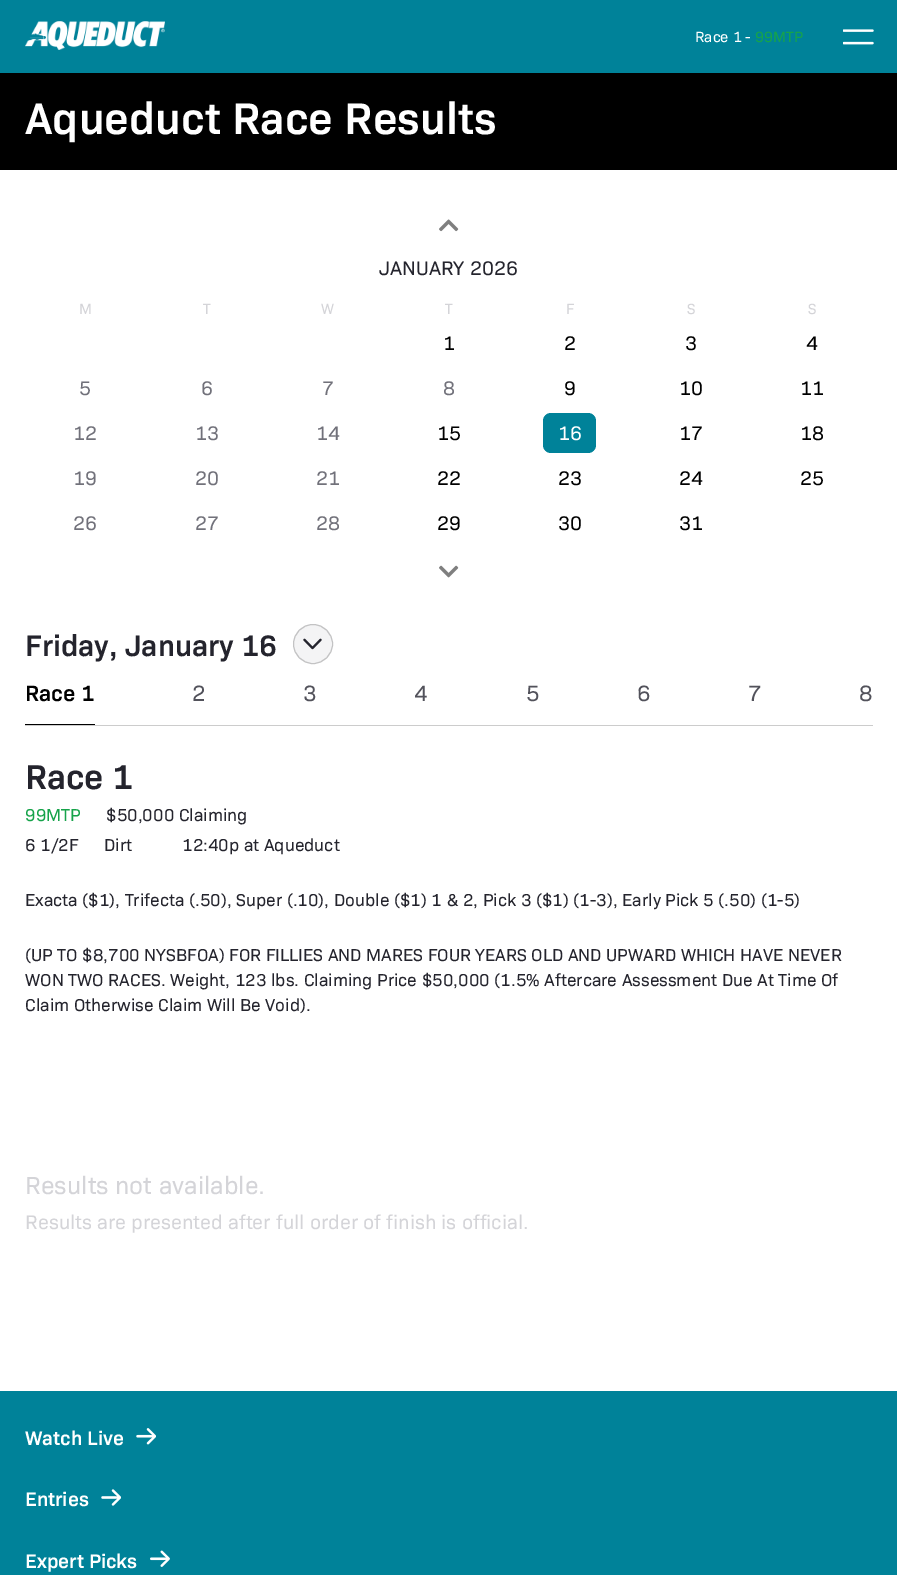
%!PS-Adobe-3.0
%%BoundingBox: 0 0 897 1575
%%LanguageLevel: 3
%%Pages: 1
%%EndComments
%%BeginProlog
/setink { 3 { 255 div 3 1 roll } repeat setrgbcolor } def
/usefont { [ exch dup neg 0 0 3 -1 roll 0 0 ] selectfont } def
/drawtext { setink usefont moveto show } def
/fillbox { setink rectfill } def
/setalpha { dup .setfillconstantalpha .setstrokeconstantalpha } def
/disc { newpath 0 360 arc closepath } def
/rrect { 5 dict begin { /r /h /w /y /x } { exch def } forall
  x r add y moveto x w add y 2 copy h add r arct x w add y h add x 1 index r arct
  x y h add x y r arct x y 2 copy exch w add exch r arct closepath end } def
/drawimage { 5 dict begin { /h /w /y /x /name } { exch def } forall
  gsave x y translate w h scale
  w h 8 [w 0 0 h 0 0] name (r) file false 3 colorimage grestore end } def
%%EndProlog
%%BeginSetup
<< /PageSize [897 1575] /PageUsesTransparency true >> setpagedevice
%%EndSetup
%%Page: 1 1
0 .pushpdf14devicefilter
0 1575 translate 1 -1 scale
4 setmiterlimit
0 0 897 1575 255 255 255 fillbox
0 0 897 73 0 130 153 fillbox
(assets/img1.rgb) 25 21 140 29 drawimage
(Race 1 -) 695 42 /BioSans-Regular 15 255 255 255 drawtext
(99MTP) 755 42 /BioSans-Regular 15 22 163 74 drawtext
(assets/img2.rgb) 843 29 31 16 drawimage
0 73 897 97 0 0 0 fillbox
(Aqueduct Race Results) 25 134 /BioSans-SemiBold 45 255 255 255 drawtext
(assets/img3.rgb) 439 219 20 13 drawimage
(JANUARY 2026) 379 275 /BioSans-Regular 20 36 36 45 drawtext
(M) 79 314 /BioSans-Regular 15 212 212 216 drawtext
(T) 203 314 /BioSans-Regular 15 212 212 216 drawtext
(W) 321 314 /BioSans-Regular 15 212 212 216 drawtext
(T) 445 314 /BioSans-Regular 15 212 212 216 drawtext
(F) 566 314 /BioSans-Regular 15 212 212 216 drawtext
(S) 687 314 /BioSans-Regular 15 212 212 216 drawtext
(S) 808 314 /BioSans-Regular 15 212 212 216 drawtext
(1) 443 350 /BioSans-Regular 20 0 0 0 drawtext
(2) 564 350 /BioSans-Regular 20 0 0 0 drawtext
(3) 685 350 /BioSans-Regular 20 0 0 0 drawtext
(4) 806 350 /BioSans-Regular 20 0 0 0 drawtext
(5) 79 395 /BioSans-Regular 20 113 113 122 drawtext
(6) 201 395 /BioSans-Regular 20 113 113 122 drawtext
(7) 322 395 /BioSans-Regular 20 113 113 122 drawtext
(8) 443 395 /BioSans-Regular 20 113 113 122 drawtext
(9) 564 395 /BioSans-Regular 20 0 0 0 drawtext
(10) 679 395 /BioSans-Regular 20 0 0 0 drawtext
(11) 800 395 /BioSans-Regular 20 0 0 0 drawtext
(12) 73 440 /BioSans-Regular 20 113 113 122 drawtext
(13) 195 440 /BioSans-Regular 20 113 113 122 drawtext
(14) 316 440 /BioSans-Regular 20 113 113 122 drawtext
(15) 437 440 /BioSans-Regular 20 0 0 0 drawtext
0 130 153 setink
543 413 53 40 8 rrect fill
(16) 558 440 /BioSans-Regular 20 255 255 255 drawtext
(17) 679 440 /BioSans-Regular 20 0 0 0 drawtext
(18) 800 440 /BioSans-Regular 20 0 0 0 drawtext
(19) 73 485 /BioSans-Regular 20 113 113 122 drawtext
(20) 195 485 /BioSans-Regular 20 113 113 122 drawtext
(21) 316 485 /BioSans-Regular 20 113 113 122 drawtext
(22) 437 485 /BioSans-Regular 20 0 0 0 drawtext
(23) 558 485 /BioSans-Regular 20 0 0 0 drawtext
(24) 679 485 /BioSans-Regular 20 0 0 0 drawtext
(25) 800 485 /BioSans-Regular 20 0 0 0 drawtext
(26) 73 530 /BioSans-Regular 20 113 113 122 drawtext
(27) 195 530 /BioSans-Regular 20 113 113 122 drawtext
(28) 316 530 /BioSans-Regular 20 113 113 122 drawtext
(29) 437 530 /BioSans-Regular 20 0 0 0 drawtext
(30) 558 530 /BioSans-Regular 20 0 0 0 drawtext
(31) 679 530 /BioSans-Regular 20 0 0 0 drawtext
(assets/img4.rgb) 439 565 20 13 drawimage
25 725 848 1 204 204 204 fillbox
(Friday, January 16) 25 656 /BioSans-SemiBold 30 36 36 45 drawtext
244 244 245 setink
313 644 20 disc fill
0.2 setalpha
0 0 0 setink
313 644 19.5 disc stroke
1 setalpha
(assets/img5.rgb) 303 638 19 12 drawimage
25 724 70 1 0 0 0 fillbox
(Race 1) 25 701 /BioSans-SemiBold 22.5 0 0 0 drawtext
(2) 192 701 /BioSans-Regular 22.5 82 82 91 drawtext
(3) 303 701 /BioSans-Regular 22.5 82 82 91 drawtext
(4) 414 701 /BioSans-Regular 22.5 82 82 91 drawtext
(5) 526 701 /BioSans-Regular 22.5 82 82 91 drawtext
(6) 637 701 /BioSans-Regular 22.5 82 82 91 drawtext
(7) 748 701 /BioSans-Regular 22.5 82 82 91 drawtext
(8) 859 701 /BioSans-Regular 22.5 82 82 91 drawtext
(Race 1) 25 789 /BioSans-SemiBold 35 36 36 45 drawtext
(99MTP) 25 821 /BioSans-Regular 17.5 22 163 74 drawtext
($50,000 Claiming) 106 821 /BioSans-Regular 17.5 36 36 45 drawtext
(6 1/2F) 25 851 /BioSans-Regular 17.5 36 36 45 drawtext
(Dirt) 104 851 /BioSans-Regular 17.5 36 36 45 drawtext
(12:40p at Aqueduct) 182 851 /BioSans-Regular 17.5 36 36 45 drawtext
(Exacta \($1\), Trifecta \(.50\), Super \(.10\), Double \($1\) 1 & 2, Pick 3 \($1\) \(1-3\), Early Pick 5 \(.50\) \(1-5\)) 25 906 /BioSans-Regular 17.5 36 36 45 drawtext
(\(UP TO $8,700 NYSBFOA\) FOR FILLIES AND MARES FOUR YEARS OLD AND UPWARD WHICH HAVE NEVER) 25 961 /BioSans-Regular 17.5 36 36 45 drawtext
(WON TWO RACES. Weight, 123 lbs. Claiming Price $50,000 \(1.5% Aftercare Assessment Due At Time Of) 25 986 /BioSans-Regular 17.5 36 36 45 drawtext
(Claim Otherwise Claim Will Be Void\).) 25 1011 /BioSans-Regular 17.5 36 36 45 drawtext
(Results not available.) 25 1194 /BioSans-Regular 25 212 212 216 drawtext
(Results are presented after full order of finish is official.) 25 1229 /BioSans-Regular 20 212 212 216 drawtext
0 1391 897 184 0 130 153 fillbox
(Watch Live) 25 1445 /BioSans-SemiBold 20 255 255 255 drawtext
(assets/img6.rgb) 136 1428 20 17 drawimage
(Entries) 25 1506 /BioSans-SemiBold 20 255 255 255 drawtext
(assets/img7.rgb) 101 1489 20 17 drawimage
(Expert Picks) 25 1568 /BioSans-SemiBold 20 255 255 255 drawtext
(assets/img8.rgb) 150 1550 20 17 drawimage
.poppdf14devicefilter showpage
%%EOF
